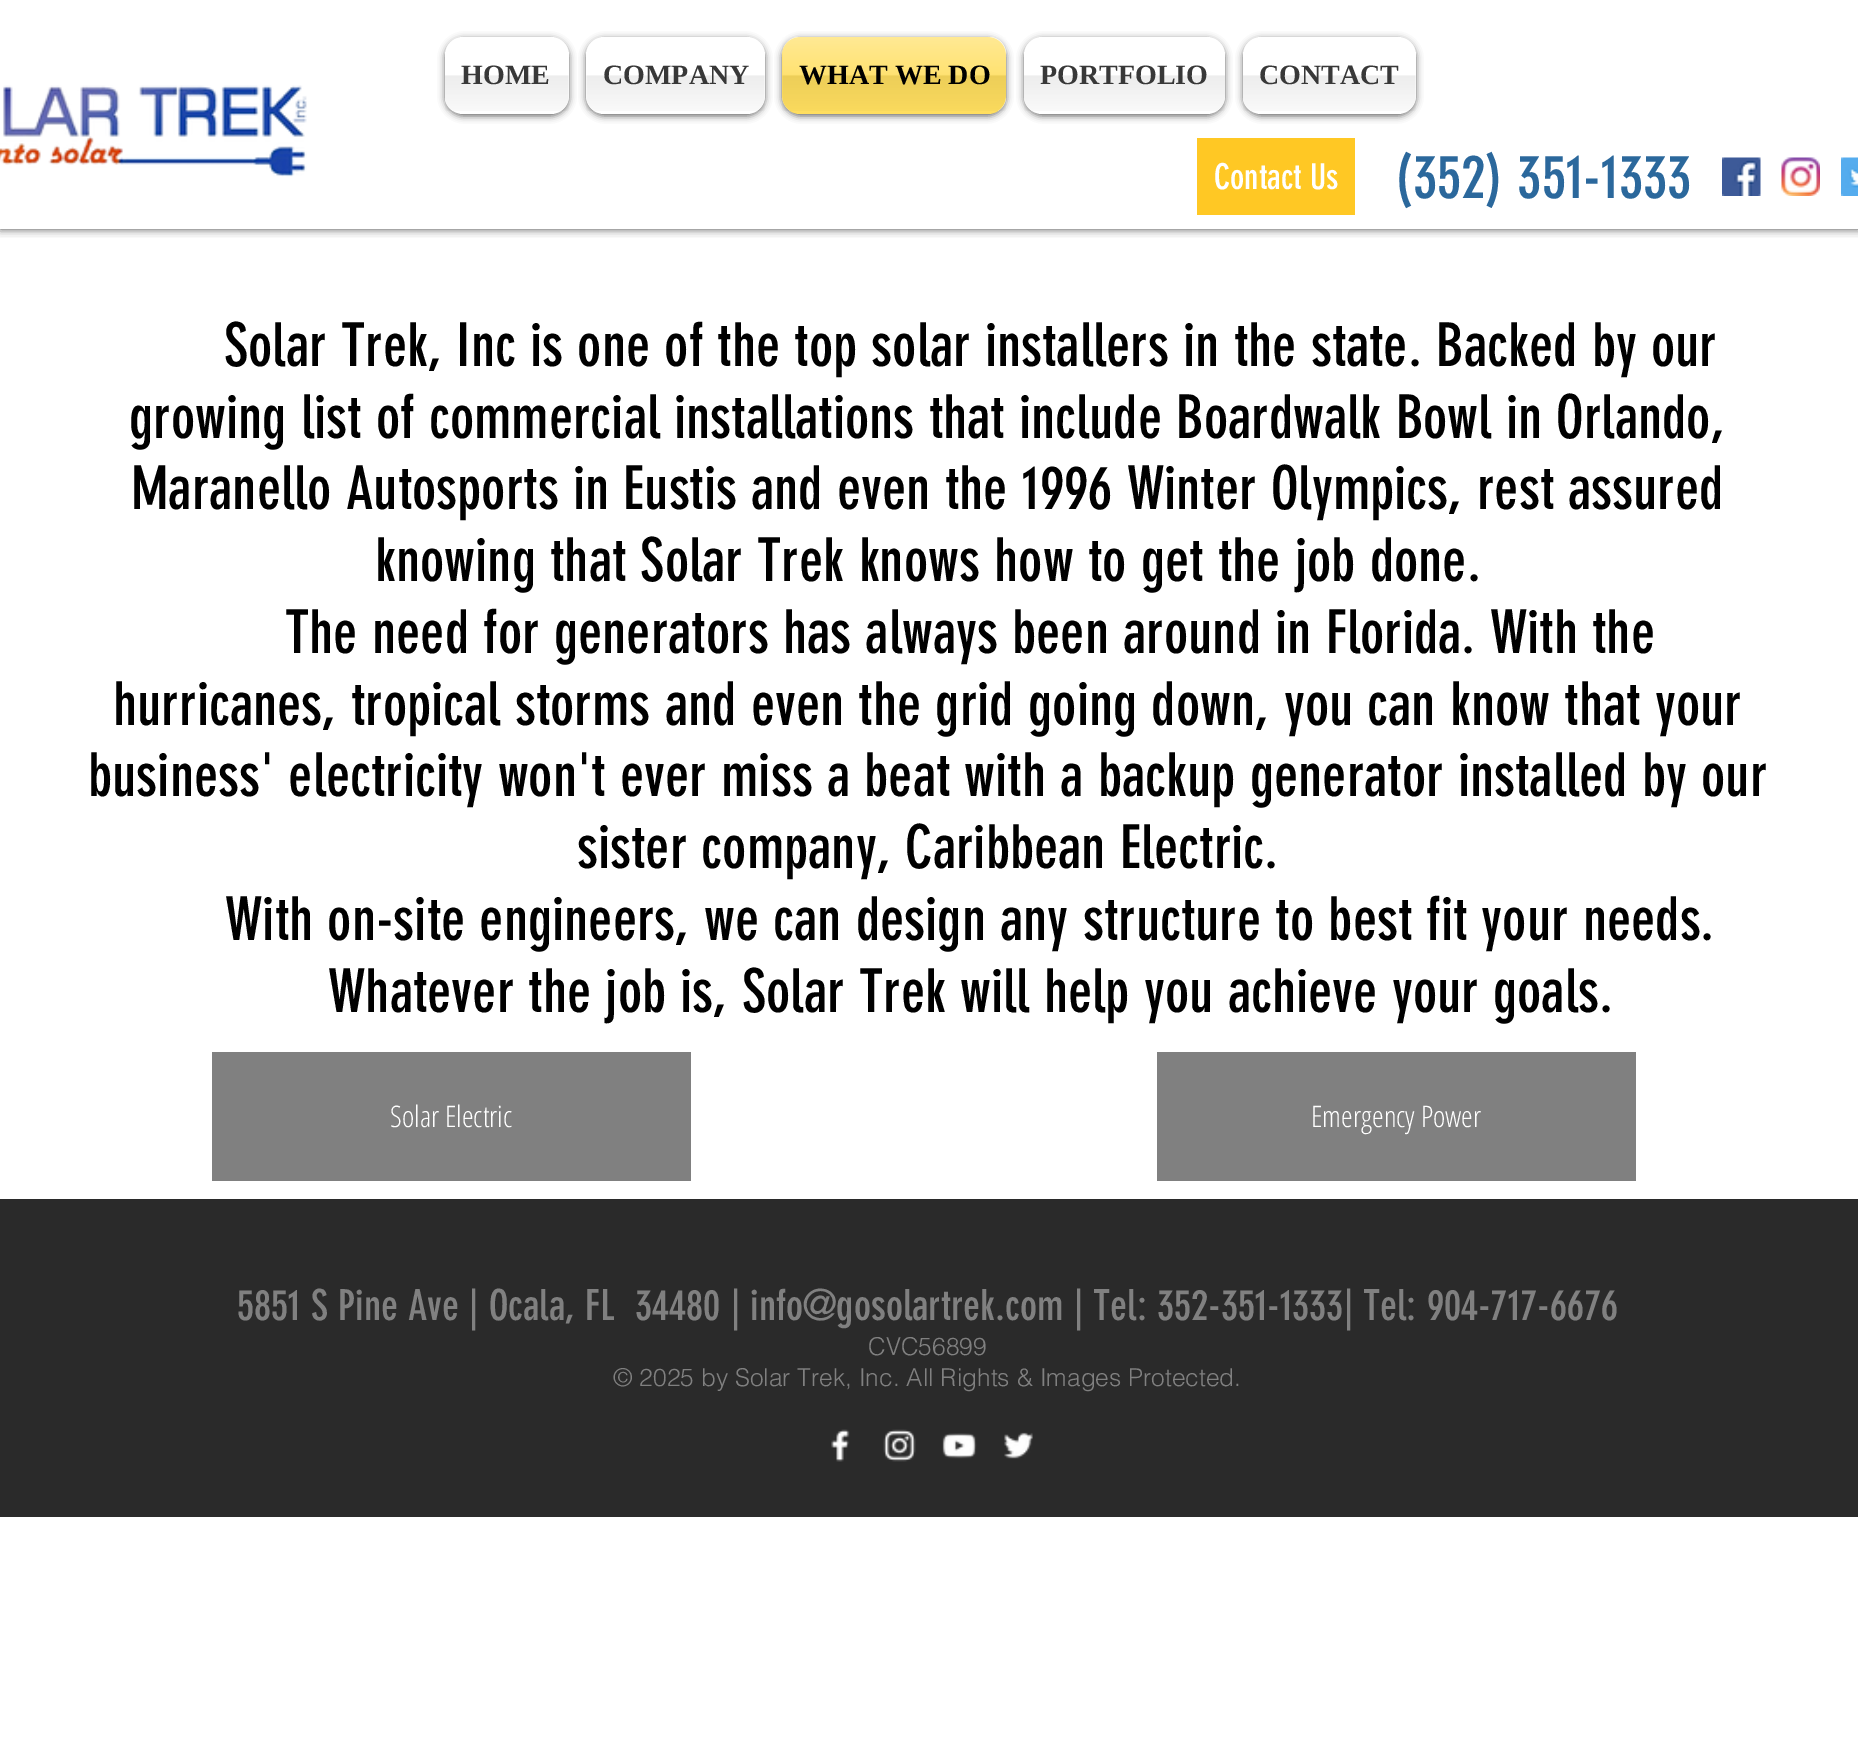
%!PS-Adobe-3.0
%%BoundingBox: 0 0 1858 1755
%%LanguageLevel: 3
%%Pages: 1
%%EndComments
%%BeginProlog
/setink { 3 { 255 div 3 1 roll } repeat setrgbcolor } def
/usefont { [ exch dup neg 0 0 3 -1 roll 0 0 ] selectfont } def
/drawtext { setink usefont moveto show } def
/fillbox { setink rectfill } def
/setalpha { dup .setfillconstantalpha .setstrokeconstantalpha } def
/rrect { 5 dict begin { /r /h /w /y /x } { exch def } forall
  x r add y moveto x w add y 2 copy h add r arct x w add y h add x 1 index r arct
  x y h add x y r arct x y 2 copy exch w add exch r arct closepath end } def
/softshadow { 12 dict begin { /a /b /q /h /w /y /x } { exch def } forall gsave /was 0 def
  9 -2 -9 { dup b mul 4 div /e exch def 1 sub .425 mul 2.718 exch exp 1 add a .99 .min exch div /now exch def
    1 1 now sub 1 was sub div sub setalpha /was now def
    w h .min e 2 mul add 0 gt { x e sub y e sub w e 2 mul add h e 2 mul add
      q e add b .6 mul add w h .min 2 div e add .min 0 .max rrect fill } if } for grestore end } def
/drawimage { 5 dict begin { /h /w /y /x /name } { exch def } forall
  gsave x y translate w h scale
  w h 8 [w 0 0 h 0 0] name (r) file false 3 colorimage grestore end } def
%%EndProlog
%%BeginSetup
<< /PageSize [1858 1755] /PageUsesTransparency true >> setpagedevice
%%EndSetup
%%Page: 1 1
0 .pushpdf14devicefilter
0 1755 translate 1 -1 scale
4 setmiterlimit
0 0 1858 1755 255 255 255 fillbox
gsave
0 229 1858 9 rectclip
0 0 0 setink
0 0 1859 229 0 4.5 0.7 softshadow
grestore
0 0 0 setink
445 39 124 77 18 3.5 0.6 softshadow
255 255 255 setink
445 37 124 77 18 rrect fill
(assets/img1.rgb) 445 75 124 36 drawimage
(HOME) 461 84 /LiberationSerif-Bold 28 56 56 56 drawtext
0 0 0 setink
586 39 179 77 18 3.5 0.6 softshadow
255 255 255 setink
586 37 179 77 18 rrect fill
(assets/img2.rgb) 586 75 179 36 drawimage
(COMPANY) 603 84 /LiberationSerif-Bold 28 56 56 56 drawtext
0 0 0 setink
782 39 224 77 18 3.5 0.6 softshadow
255 222 95 setink
782 37 224 77 18 rrect fill
(assets/img3.rgb) 782 37 224 74 drawimage
(WHAT WE DO) 799 84 /LiberationSerif-Bold 28 0 0 0 drawtext
1024 39 201 77 18 3.5 0.6 softshadow
255 255 255 setink
1024 37 201 77 18 rrect fill
(assets/img4.rgb) 1024 75 201 36 drawimage
(PORTFOLIO) 1040 84 /LiberationSerif-Bold 28 56 56 56 drawtext
0 0 0 setink
1243 39 173 77 18 3.5 0.6 softshadow
255 255 255 setink
1243 37 173 77 18 rrect fill
(assets/img5.rgb) 1243 75 173 36 drawimage
(CONTACT) 1259 84 /LiberationSerif-Bold 28 56 56 56 drawtext
(assets/img6.rgb) 0 85 307 92 drawimage
1197 138 158 77 255 200 36 fillbox
(Contact Us) 1214 189 /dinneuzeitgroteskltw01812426-Regular 35 255 255 255 drawtext
(\(352\) 351-1333) 1395 198 /dinneuzeitgroteskltw01812426-Regular 59.5 43 104 156 drawtext
(assets/img7.rgb) 1722 157 39 39 drawimage
(assets/img8.rgb) 1781 157 39 39 drawimage
(assets/img9.rgb) 1841 157 17 39 drawimage
(Solar Trek, Inc is one of the top solar installers in the state. Backed by our) 224 366 /dinneuzeitgroteskltw01812426-Regular 59.5 0 0 0 drawtext
(growing list of commercial installations that include Boardwalk Bowl in Orlando,) 129 438 /dinneuzeitgroteskltw01812426-Regular 59.5 0 0 0 drawtext
(Maranello Autosports in Eustis and even the 1996 Winter Olympics, rest assured) 131 509 /dinneuzeitgroteskltw01812426-Regular 59.5 0 0 0 drawtext
(knowing that Solar Trek knows how to get the job done.) 375 581 /dinneuzeitgroteskltw01812426-Regular 59.5 0 0 0 drawtext
(The need for generators has always been around in Florida. With the) 285 653 /dinneuzeitgroteskltw01812426-Regular 59.5 0 0 0 drawtext
(hurricanes, tropical storms and even the grid going down, you can know that your) 113 725 /dinneuzeitgroteskltw01812426-Regular 59.5 0 0 0 drawtext
(business' electricity won't ever miss a beat with a backup generator installed by our) 88 796 /dinneuzeitgroteskltw01812426-Regular 59.5 0 0 0 drawtext
(sister company, Caribbean Electric.) 577 868 /dinneuzeitgroteskltw01812426-Regular 59.5 0 0 0 drawtext
(With on-site engineers, we can design any structure to best fit your needs.) 225 940 /dinneuzeitgroteskltw01812426-Regular 59.5 0 0 0 drawtext
(Whatever the job is, Solar Trek will help you achieve your goals.) 328 1012 /dinneuzeitgroteskltw01812426-Regular 59.5 0 0 0 drawtext
212 1052 479 129 128 128 128 fillbox
(Solar Electric) 390 1127 /OpenSansCondensed-Light 29.75 255 255 255 drawtext
1157 1052 479 129 128 128 128 fillbox
(Emergency Power) 1311 1127 /OpenSansCondensed-Light 29.75 255 255 255 drawtext
0 1199 1858 318 42 42 42 fillbox
(5851 S Pine Ave | Ocala, FL  34480 | info@gosolartrek.com | Tel: 352-351-1333| Tel: 904-717-6676) 237 1320 /dinneuzeitgroteskltw01812426-Regular 42 128 128 128 drawtext
(CVC56899) 868 1355 /helvetica-Light 24.5 128 128 128 drawtext
(© 2025 by Solar Trek, Inc. All Rights & Images Protected.) 613 1386 /helvetica-Light 24.5 128 128 128 drawtext
(assets/img10.rgb) 831 1429 19 33 drawimage
(assets/img11.rgb) 883 1429 33 33 drawimage
(assets/img12.rgb) 942 1433 35 26 drawimage
(assets/img13.rgb) 1004 1432 29 27 drawimage
.poppdf14devicefilter showpage
%%EOF
